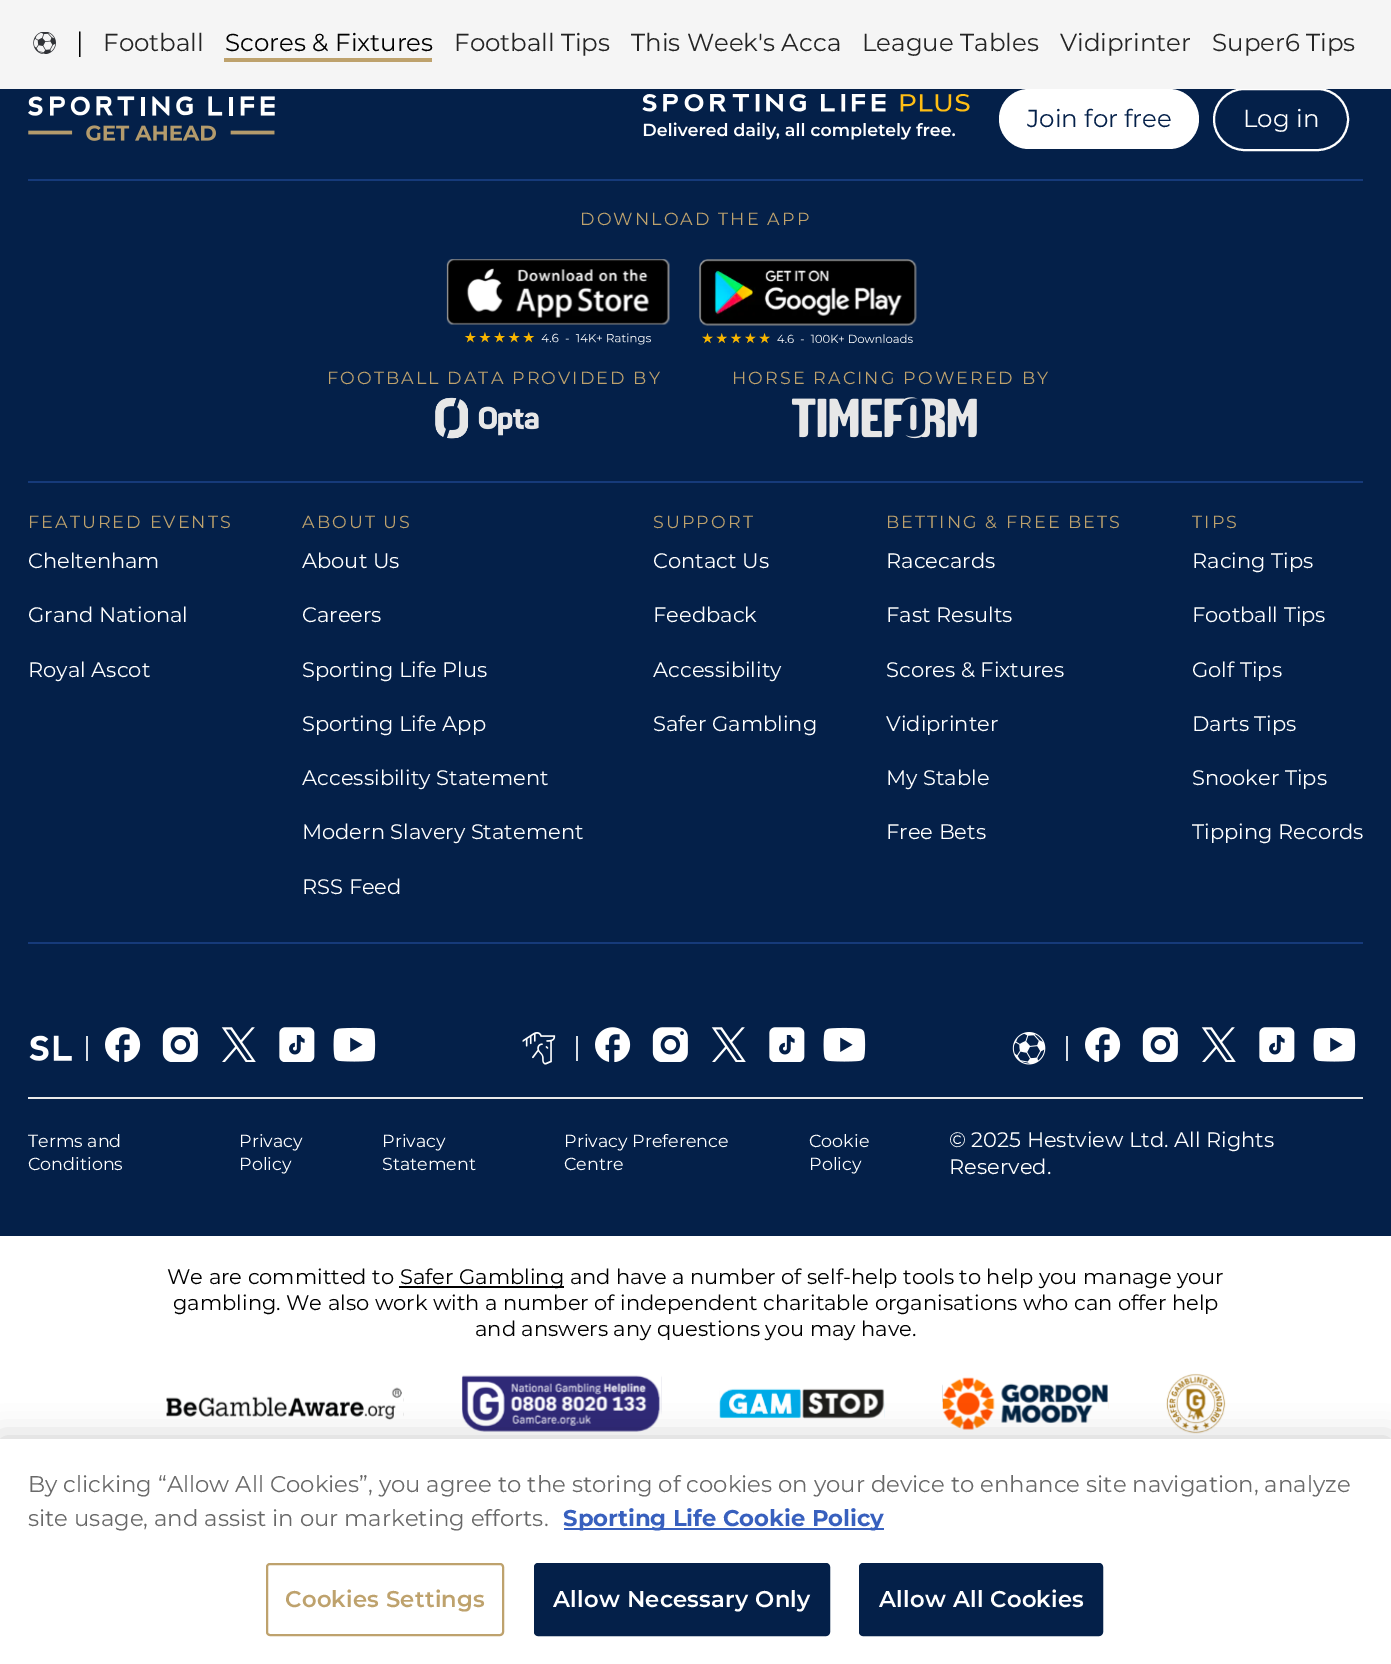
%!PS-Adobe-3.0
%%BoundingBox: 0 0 1391 1664
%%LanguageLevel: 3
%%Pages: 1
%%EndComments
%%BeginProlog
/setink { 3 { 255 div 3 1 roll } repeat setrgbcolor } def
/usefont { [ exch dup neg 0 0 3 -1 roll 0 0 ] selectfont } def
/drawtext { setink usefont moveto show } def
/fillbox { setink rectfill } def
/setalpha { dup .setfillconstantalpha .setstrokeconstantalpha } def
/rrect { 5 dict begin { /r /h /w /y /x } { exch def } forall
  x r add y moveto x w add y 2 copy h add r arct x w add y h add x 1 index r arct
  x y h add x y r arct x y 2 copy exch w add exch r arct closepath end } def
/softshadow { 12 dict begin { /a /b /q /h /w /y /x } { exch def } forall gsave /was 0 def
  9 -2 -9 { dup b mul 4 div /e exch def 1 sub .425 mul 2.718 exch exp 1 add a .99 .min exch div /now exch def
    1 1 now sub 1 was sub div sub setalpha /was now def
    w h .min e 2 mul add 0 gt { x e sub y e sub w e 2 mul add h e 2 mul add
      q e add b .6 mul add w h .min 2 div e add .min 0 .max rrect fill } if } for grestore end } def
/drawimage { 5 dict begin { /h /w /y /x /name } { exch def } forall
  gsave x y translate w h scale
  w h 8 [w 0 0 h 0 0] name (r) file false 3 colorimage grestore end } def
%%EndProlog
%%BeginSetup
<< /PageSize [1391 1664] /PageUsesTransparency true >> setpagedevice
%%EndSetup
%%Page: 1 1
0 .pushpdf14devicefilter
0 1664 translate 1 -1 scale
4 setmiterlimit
0 0 1391 1664 4 32 73 fillbox
255 255 255 setink
2 setlinewidth
1214 89 134 61 30.5 rrect stroke
0 0 1391 89 245 245 245 fillbox
(assets/img1.rgb) 33 32 23 22 drawimage
(|) 77 51 /LiberationSerif-Regular 28 0 0 0 drawtext
(Football) 103 51 /Montserrat-Regular 24.5 37 37 37 drawtext
(Scores & Fixtures) 225 51 /Montserrat-Regular 24.5 0 0 0 drawtext
224 58 208 4 190 162 109 fillbox
(Football Tips) 454 51 /Montserrat-Regular 24.5 37 37 37 drawtext
(This Week's Acca) 631 51 /Montserrat-Regular 24.5 37 37 37 drawtext
(League Tables) 862 51 /Montserrat-Regular 24.5 37 37 37 drawtext
(Vidiprinter) 1060 51 /Montserrat-Regular 24.5 37 37 37 drawtext
(Super6 Tips) 1212 51 /Montserrat-Regular 24.5 37 37 37 drawtext
28 179 1335 2 22 58 122 fillbox
(assets/img2.rgb) 28 96 247 45 drawimage
(assets/img3.rgb) 642 94 328 46 drawimage
255 255 255 setink
999 89 200 60 30 rrect fill
(Join for free) 1027 127 /Montserrat-Regular 24.5 4 32 73 drawtext
(Log in) 1243 127 /Montserrat-Regular 24.5 255 255 255 drawtext
28 481 1335 2 22 58 122 fillbox
/Montserrat-Regular 17.5 usefont
190 162 109 setink
580 225 moveto 2.1 0 (DOWNLOAD THE APP) ashow
(assets/img4.rgb) 446 259 224 86 drawimage
(assets/img5.rgb) 699 259 218 85 drawimage
327 384 moveto 2.1 0 (FOOTBALL DATA PROVIDED BY) ashow
(assets/img6.rgb) 435 397 104 42 drawimage
732 384 moveto 2.1 0 (HORSE RACING POWERED BY) ashow
(assets/img7.rgb) 791 397 186 42 drawimage
28 942 1335 2 22 58 122 fillbox
190 162 109 setink
28 528 moveto 2.1 0 (FEATURED EVENTS) ashow
(Cheltenham) 28 568 /Montserrat-Regular 21 255 255 255 drawtext
(Grand National) 28 622 /Montserrat-Regular 21 255 255 255 drawtext
(Royal Ascot) 28 677 /Montserrat-Regular 21 255 255 255 drawtext
/Montserrat-Regular 17.5 usefont
190 162 109 setink
302 528 moveto 2.1 0 (ABOUT US) ashow
(About Us) 302 568 /Montserrat-Regular 21 255 255 255 drawtext
(Careers) 302 622 /Montserrat-Regular 21 255 255 255 drawtext
(Sporting Life Plus) 302 677 /Montserrat-Regular 21 255 255 255 drawtext
(Sporting Life App) 302 731 /Montserrat-Regular 21 255 255 255 drawtext
(Accessibility Statement) 302 785 /Montserrat-Regular 21 255 255 255 drawtext
(Modern Slavery Statement) 302 839 /Montserrat-Regular 21 255 255 255 drawtext
(RSS Feed) 302 894 /Montserrat-Regular 21 255 255 255 drawtext
/Montserrat-Regular 17.5 usefont
190 162 109 setink
653 528 moveto 2.1 0 (SUPPORT) ashow
(Contact Us) 653 568 /Montserrat-Regular 21 255 255 255 drawtext
(Feedback) 653 622 /Montserrat-Regular 21 255 255 255 drawtext
(Accessibility) 653 677 /Montserrat-Regular 21 255 255 255 drawtext
(Safer Gambling) 653 731 /Montserrat-Regular 21 255 255 255 drawtext
/Montserrat-Regular 17.5 usefont
190 162 109 setink
886 528 moveto 2.1 0 (BETTING & FREE BETS) ashow
(Racecards) 886 568 /Montserrat-Regular 21 255 255 255 drawtext
(Fast Results) 886 622 /Montserrat-Regular 21 255 255 255 drawtext
(Scores & Fixtures) 886 677 /Montserrat-Regular 21 255 255 255 drawtext
(Vidiprinter) 886 731 /Montserrat-Regular 21 255 255 255 drawtext
(My Stable) 886 785 /Montserrat-Regular 21 255 255 255 drawtext
(Free Bets) 886 839 /Montserrat-Regular 21 255 255 255 drawtext
/Montserrat-Regular 17.5 usefont
190 162 109 setink
1192 528 moveto 2.1 0 (TIPS) ashow
(Racing Tips) 1192 568 /Montserrat-Regular 21 255 255 255 drawtext
(Football Tips) 1192 622 /Montserrat-Regular 21 255 255 255 drawtext
(Golf Tips) 1192 677 /Montserrat-Regular 21 255 255 255 drawtext
(Darts Tips) 1192 731 /Montserrat-Regular 21 255 255 255 drawtext
(Snooker Tips) 1192 785 /Montserrat-Regular 21 255 255 255 drawtext
(Tipping Records) 1192 839 /Montserrat-Regular 21 255 255 255 drawtext
28 1097 1335 2 234 234 234 fillbox
(assets/img8.rgb) 29 1035 43 26 drawimage
86 1036 2 25 217 222 228 fillbox
(assets/img9.rgb) 105 1027 36 35 drawimage
(assets/img10.rgb) 162 1027 36 35 drawimage
(assets/img11.rgb) 221 1027 35 35 drawimage
(assets/img12.rgb) 279 1027 36 35 drawimage
(assets/img13.rgb) 333 1027 43 35 drawimage
(assets/img14.rgb) 522 1032 34 33 drawimage
576 1036 2 25 217 222 228 fillbox
(assets/img9.rgb) 595 1027 36 35 drawimage
(assets/img10.rgb) 652 1027 36 35 drawimage
(assets/img11.rgb) 711 1027 35 35 drawimage
(assets/img12.rgb) 769 1027 36 35 drawimage
(assets/img13.rgb) 823 1027 43 35 drawimage
(assets/img15.rgb) 1012 1032 34 33 drawimage
1066 1036 2 25 217 222 228 fillbox
(assets/img9.rgb) 1085 1027 36 35 drawimage
(assets/img10.rgb) 1142 1027 36 35 drawimage
(assets/img11.rgb) 1201 1027 35 35 drawimage
(assets/img12.rgb) 1259 1027 36 35 drawimage
(assets/img13.rgb) 1313 1027 43 35 drawimage
(Terms and) 28 1147 /Montserrat-Regular 17.5 255 255 255 drawtext
(Conditions) 28 1170 /Montserrat-Regular 17.5 255 255 255 drawtext
(Privacy) 239 1147 /Montserrat-Regular 17.5 255 255 255 drawtext
(Policy) 239 1170 /Montserrat-Regular 17.5 255 255 255 drawtext
(Privacy) 382 1147 /Montserrat-Regular 17.5 255 255 255 drawtext
(Statement) 382 1170 /Montserrat-Regular 17.5 255 255 255 drawtext
(Privacy Preference) 564 1147 /Montserrat-Regular 17.5 255 255 255 drawtext
(Centre) 564 1170 /Montserrat-Regular 17.5 255 255 255 drawtext
(Cookie) 809 1147 /Montserrat-Regular 17.5 255 255 255 drawtext
(Policy) 809 1170 /Montserrat-Regular 17.5 255 255 255 drawtext
(© 2025 Hestview Ltd. All Rights) 949 1147 /Montserrat-Regular 21 255 255 255 drawtext
(Reserved.) 949 1174 /Montserrat-Regular 21 255 255 255 drawtext
0 1236 1391 203 255 255 255 fillbox
(We are committed to) 167 1284 /Montserrat-Regular 21 0 0 0 drawtext
399 1286 165 2 0 0 0 fillbox
(Safer Gambling and have a number of self-help tools to help you manage your) 400 1284 /Montserrat-Regular 21 0 0 0 drawtext
(gambling. We also work with a number of independent charitable organisations who can offer help) 173 1310 /Montserrat-Regular 21 0 0 0 drawtext
(and answers any questions you may have.) 475 1336 /Montserrat-Regular 21 0 0 0 drawtext
(assets/img16.rgb) 166 1387 238 33 drawimage
(assets/img17.rgb) 461 1375 201 57 drawimage
(assets/img18.rgb) 719 1388 166 31 drawimage
(assets/img19.rgb) 942 1377 167 53 drawimage
(assets/img20.rgb) 1166 1373 60 61 drawimage
0 1439 1391 225 0 16 0.2 softshadow
0 1439 1391 225 255 255 255 fillbox
(By clicking “Allow All Cookies”, you agree to the storing of cookies on your device to enhance site navigation, analyze) 28 1492 /Montserrat-Regular 22.75 105 105 105 drawtext
(site usage, and assist in our marketing efforts.) 28 1526 /Montserrat-Regular 22.75 105 105 105 drawtext
564 1528 320 2 56 96 190 fillbox
(Sporting Life Cookie Policy) 563 1526 /Montserrat-Bold 22.75 56 96 190 drawtext
190 162 109 setink
267 1564 236 71 3 rrect stroke
/Montserrat-SemiBold 22.75 usefont
285 1607 moveto 0.25 0 (Cookies Settings) ashow
4 32 73 setink
535 1564 294 71 3 rrect gsave fill grestore
stroke
255 255 255 setink
553 1607 moveto 0.25 0 (Allow Necessary Only) ashow
4 32 73 setink
860 1564 242 71 3 rrect gsave fill grestore
stroke
255 255 255 setink
879 1607 moveto 0.25 0 (Allow All Cookies) ashow
.poppdf14devicefilter showpage
%%EOF
